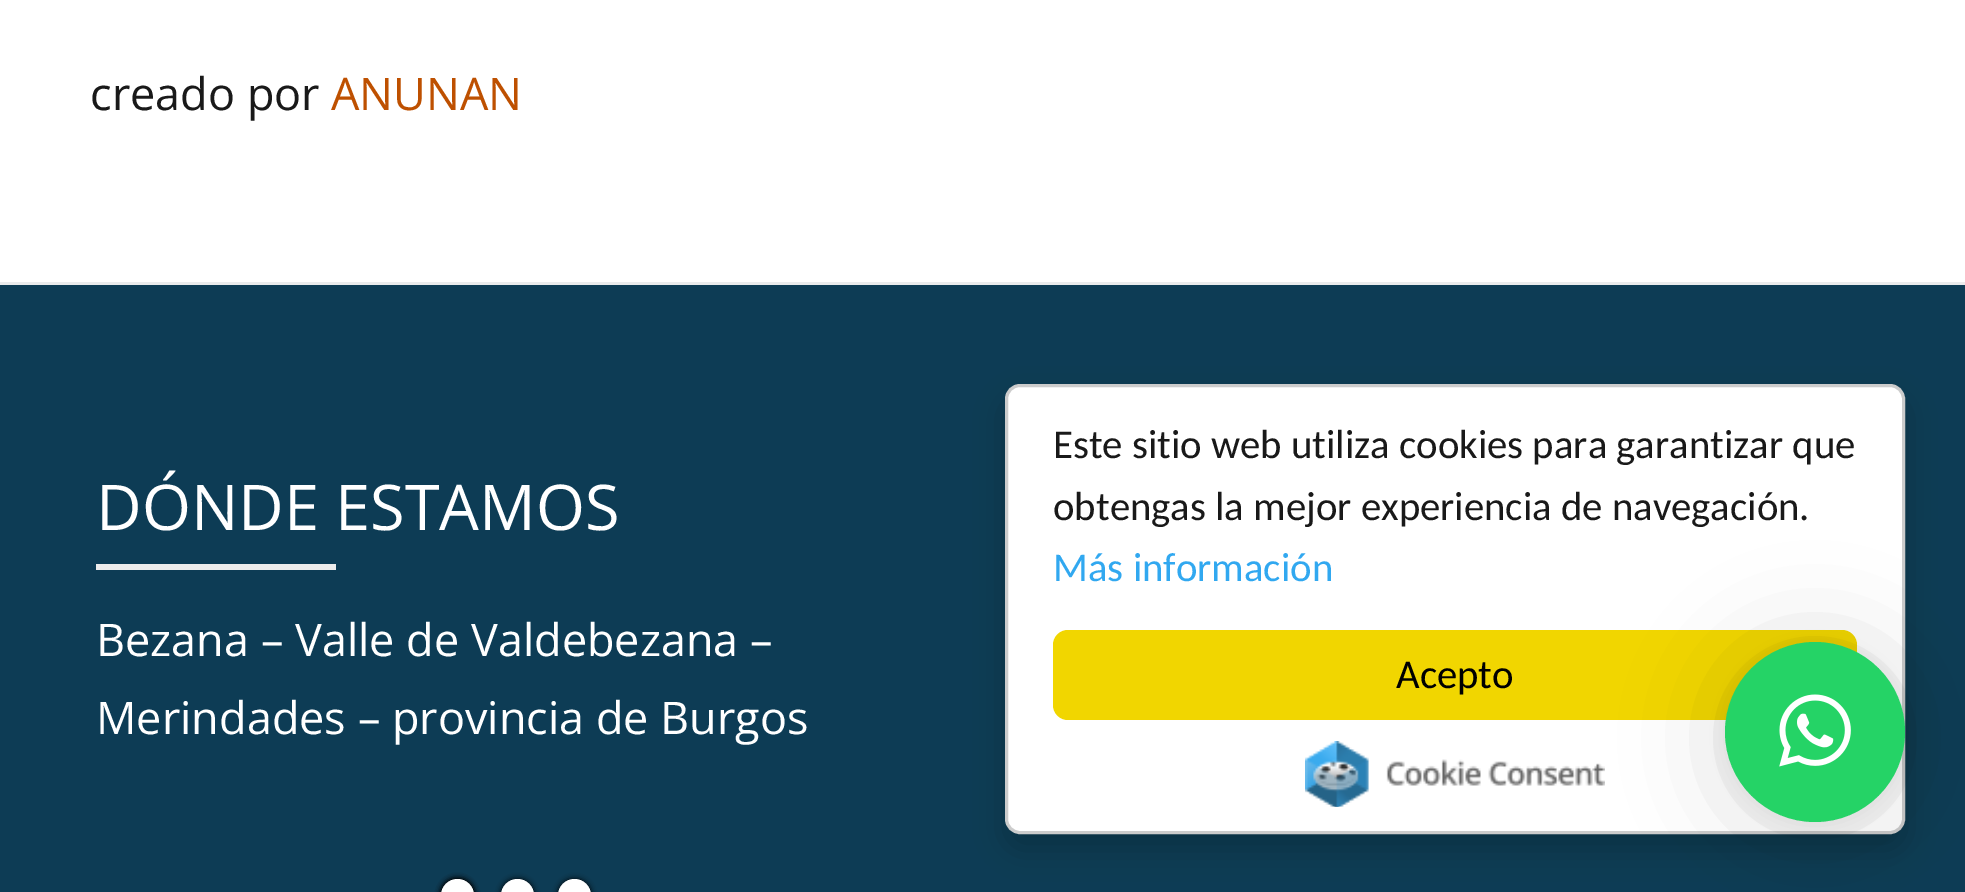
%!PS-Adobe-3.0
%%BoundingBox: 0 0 1965 892
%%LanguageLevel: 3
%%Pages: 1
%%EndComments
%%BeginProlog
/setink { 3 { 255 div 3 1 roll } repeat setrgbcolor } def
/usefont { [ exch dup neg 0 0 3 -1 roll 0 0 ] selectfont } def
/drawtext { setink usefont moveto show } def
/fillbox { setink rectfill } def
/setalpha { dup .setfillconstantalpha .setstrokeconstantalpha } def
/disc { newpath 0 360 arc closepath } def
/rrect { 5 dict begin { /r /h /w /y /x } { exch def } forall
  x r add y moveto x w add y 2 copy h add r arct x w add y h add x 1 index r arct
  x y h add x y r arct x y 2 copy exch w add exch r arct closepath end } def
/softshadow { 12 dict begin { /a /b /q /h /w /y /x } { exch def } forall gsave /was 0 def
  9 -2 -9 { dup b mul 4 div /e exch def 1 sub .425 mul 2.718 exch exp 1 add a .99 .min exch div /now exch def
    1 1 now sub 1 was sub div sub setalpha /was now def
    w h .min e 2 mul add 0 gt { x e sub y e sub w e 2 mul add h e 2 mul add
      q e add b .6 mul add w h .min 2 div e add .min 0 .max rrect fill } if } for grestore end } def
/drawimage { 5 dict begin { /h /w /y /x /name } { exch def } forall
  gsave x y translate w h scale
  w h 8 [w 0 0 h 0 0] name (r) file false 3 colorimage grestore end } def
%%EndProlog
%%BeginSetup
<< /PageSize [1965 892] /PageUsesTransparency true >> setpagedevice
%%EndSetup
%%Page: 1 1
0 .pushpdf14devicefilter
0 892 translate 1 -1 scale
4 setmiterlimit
0 0 1965 892 255 255 255 fillbox
(creado por) 90 110 /OpenSans-Regular 45 25 25 25 drawtext
(ANUNAN) 331 110 /OpenSans-Regular 45 190 80 0 drawtext
0 285 1965 607 13 60 85 fillbox
0 282 1965 3 234 235 236 fillbox
(DÓNDE ESTAMOS) 96 530 /OpenSans-Regular 63 255 255 255 drawtext
96 564 240 6 236 236 236 fillbox
(Bezana – Valle de Valdebezana –) 96 656 /OpenSans-Regular 45 255 255 255 drawtext
(Merindades – provincia de Burgos) 96 734 /OpenSans-Regular 45 255 255 255 drawtext
0 0 0 setink
441 879 33 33 16.5 3 1 softshadow
441 879 33 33 16.5 3 1 softshadow
255 255 255 setink
441 879 33 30 16.5 rrect fill
0 0 0 setink
501 879 33 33 16.5 3 1 softshadow
255 255 255 setink
501 879 33 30 16.5 rrect fill
0 0 0 setink
558 879 33 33 16.5 3 1 softshadow
255 255 255 setink
558 879 33 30 16.5 rrect fill
0 0 0 setink
1005 399 900 450 15 15 0.2 softshadow
255 255 255 setink
1006.5 385.5 897 447 13.5 rrect gsave fill grestore
204 204 204 setink
3 setlinewidth
stroke
(Este sitio web utiliza cookies para garantizar que) 1053 458 /Carlito-Regular 40.75 25 25 25 drawtext
(obtengas la mejor experiencia de navegación.) 1053 520 /Carlito-Regular 40.75 25 25 25 drawtext
(Más información) 1053 581 /Carlito-Regular 40.75 49 168 240 drawtext
241 214 0 setink
1053 630 804 90 15 rrect fill
(Acepto) 1396 688 /Carlito-Regular 40.75 0 0 0 drawtext
(assets/img1.rgb) 1305 741 300 66 drawimage
1725 648 180 180 90 48 0.16 softshadow
1725 645 180 180 90 9 0.06 softshadow
37 211 102 setink
1815 732 90 disc fill
(assets/img2.rgb) 1779 694 72 73 drawimage
.poppdf14devicefilter showpage
%%EOF
